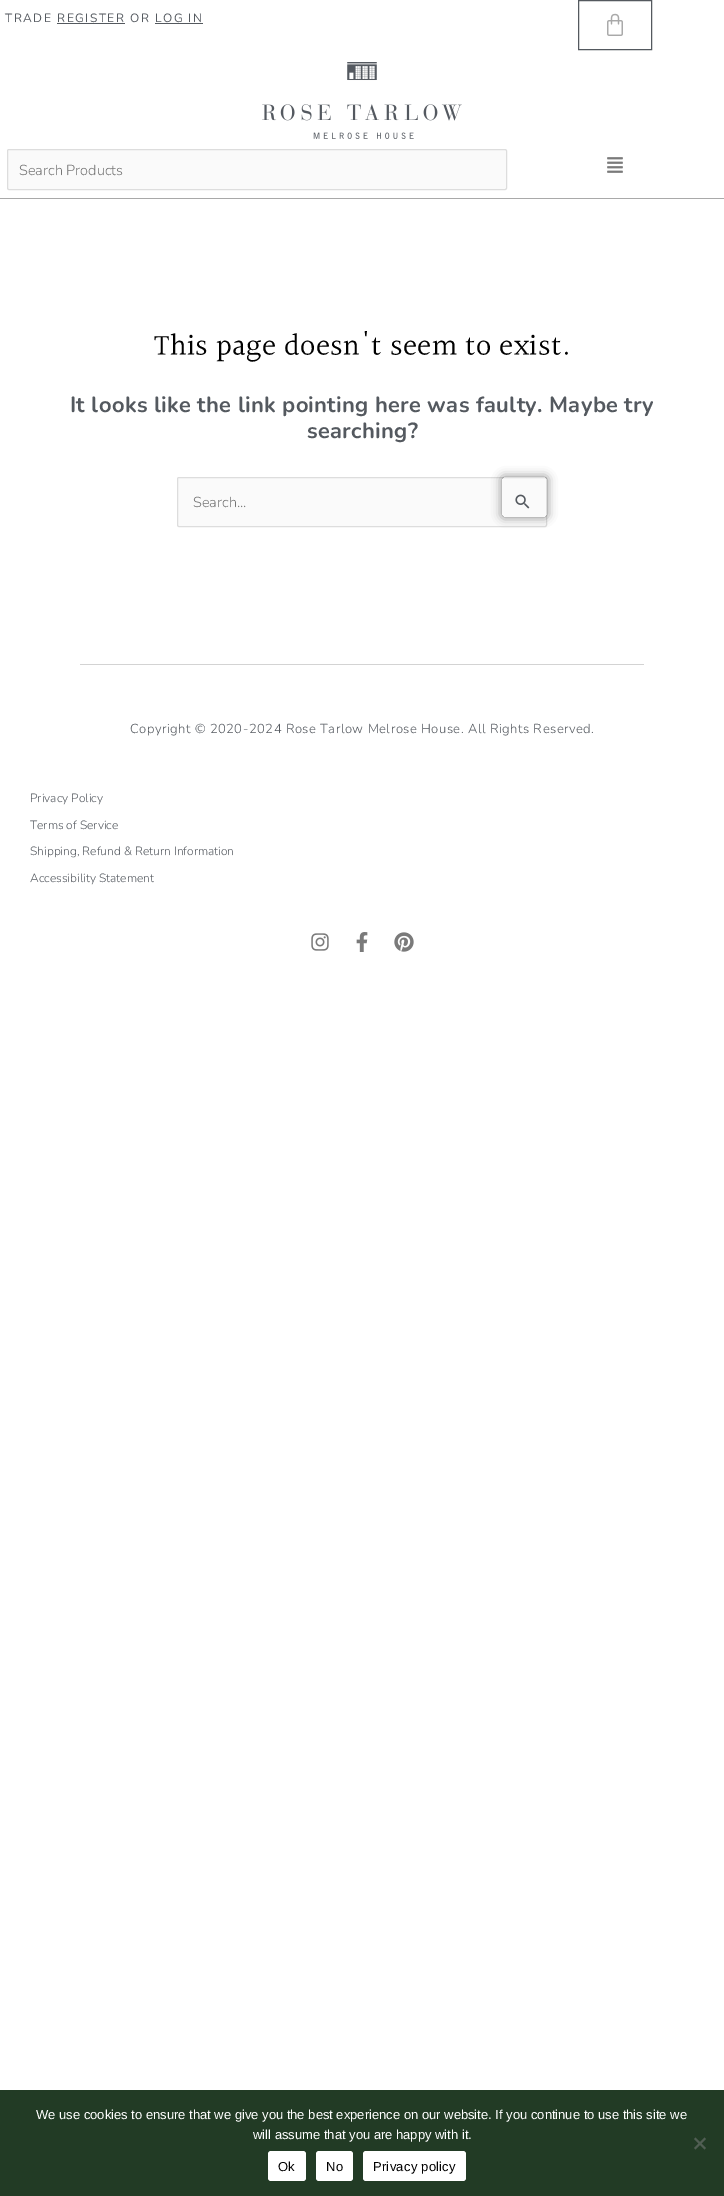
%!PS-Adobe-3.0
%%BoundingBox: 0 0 724 2196
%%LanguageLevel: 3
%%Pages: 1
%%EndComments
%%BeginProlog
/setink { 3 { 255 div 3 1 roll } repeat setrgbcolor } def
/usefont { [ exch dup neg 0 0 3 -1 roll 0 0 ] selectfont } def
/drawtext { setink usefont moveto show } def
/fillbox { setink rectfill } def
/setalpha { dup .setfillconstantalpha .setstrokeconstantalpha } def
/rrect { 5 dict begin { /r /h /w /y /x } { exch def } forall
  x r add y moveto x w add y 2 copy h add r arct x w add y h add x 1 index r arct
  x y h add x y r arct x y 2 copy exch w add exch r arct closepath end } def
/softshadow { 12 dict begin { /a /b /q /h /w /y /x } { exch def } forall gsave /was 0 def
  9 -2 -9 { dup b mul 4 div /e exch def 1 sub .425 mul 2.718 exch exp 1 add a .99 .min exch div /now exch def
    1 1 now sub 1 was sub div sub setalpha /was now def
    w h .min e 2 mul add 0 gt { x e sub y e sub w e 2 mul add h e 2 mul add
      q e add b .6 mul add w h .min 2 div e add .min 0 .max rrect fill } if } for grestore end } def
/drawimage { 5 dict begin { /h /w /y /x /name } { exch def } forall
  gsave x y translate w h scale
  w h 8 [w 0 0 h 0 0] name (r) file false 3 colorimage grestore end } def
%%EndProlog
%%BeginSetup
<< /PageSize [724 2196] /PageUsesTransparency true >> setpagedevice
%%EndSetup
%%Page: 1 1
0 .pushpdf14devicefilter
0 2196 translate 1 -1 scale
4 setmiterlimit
0 0 724 2196 255 255 255 fillbox
0 198 724 1 169 169 169 fillbox
/Nunito-Regular 12 usefont
84 89 95 setink
5 22 moveto 1.5 0 (TRADE REGISTER OR LOG IN) ashow
57 23 68 1 84 89 95 fillbox
155 23 48 1 84 89 95 fillbox
578.5 0.5 73 49 rectstroke
(assets/img1.rgb) 607 13 16 23 drawimage
(assets/img2.rgb) 262 62 200 77 drawimage
250 250 250 setink
7.5 149.5 499 40 1.5 rrect gsave fill grestore
221 221 221 setink
stroke
(Search Products) 19 175 /Nunito-Light 14.5 117 117 117 drawtext
(assets/img3.rgb) 607 157 16 16 drawimage
/Halant-Regular 30 usefont
0 0 0 setink
154 356 moveto 0.3 0 (This page doesn't seem to exist.) ashow
/Nunito-Bold 21.9 usefont
84 89 95 setink
70 412 moveto 0.3 0 (It looks like the link pointing here was faulty. Maybe try) ashow
307 438 moveto 0.3 0 (searching?) ashow
250 250 250 setink
177.5 477.5 369 49 1.5 rrect gsave fill grestore
221 221 221 setink
stroke
(assets/img4.rgb) 515 494 15 15 drawimage
gsave
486 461 moveto 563 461 lineto 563 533 lineto 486 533 lineto closepath 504 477 moveto 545 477 lineto 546 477 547 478 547 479 curveto 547 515 lineto 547 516 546 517 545 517 curveto 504 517 lineto 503 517 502 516 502 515 curveto 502 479 lineto 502 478 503 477 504 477 curveto closepath eoclip newpath
0 0 0 setink
502 477 45 40 2 5 0.5 softshadow
grestore
(Search...) 193 507 /Nunito-Light 14.5 117 117 117 drawtext
80 664 564 1 211 211 211 fillbox
/Nunito-Light 13 usefont
84 89 95 setink
130 733 moveto 0.5 0 (Copyright © 2020-2024 Rose Tarlow Melrose House. All Rights Reserved.) ashow
(Privacy Policy) 30 802 /Nunito-Light 12 84 89 95 drawtext
(Terms of Service) 30 829 /Nunito-Light 12 84 89 95 drawtext
(Shipping, Refund & Return Information) 30 855 /Nunito-Light 12 84 89 95 drawtext
(Accessibility Statement) 30 882 /Nunito-Light 12 84 89 95 drawtext
(assets/img5.rgb) 311 933 18 18 drawimage
(assets/img6.rgb) 356 932 12 20 drawimage
(assets/img7.rgb) 394 932 20 20 drawimage
0 2090 724 106 34 59 37 fillbox
(We use cookies to ensure that we give you the best experience on our website. If you continue to use this site we) 36 2119 /LiberationSans-Regular 13 255 255 255 drawtext
(will assume that you are happy with it.) 253 2139 /LiberationSans-Regular 13 255 255 255 drawtext
81 94 83 setink
704.5 2137.5 moveto 706 2139 lineto 695.5 2149.5 lineto 694 2148 lineto closepath fill
694 2139 moveto 695.5 2137.5 lineto 706 2148 lineto 704.5 2149.5 lineto closepath fill
255 255 255 setink
268 2151 38 30 3 rrect fill
0 0 0 setink
278 2171 moveto 0.25 0 (Ok) ashow
255 255 255 setink
316 2151 37 30 3 rrect fill
0 0 0 setink
326 2171 moveto 0.25 0 (No) ashow
255 255 255 setink
363 2151 103 30 3 rrect fill
0 0 0 setink
373 2171 moveto 0.25 0 (Privacy policy) ashow
.poppdf14devicefilter showpage
%%EOF
